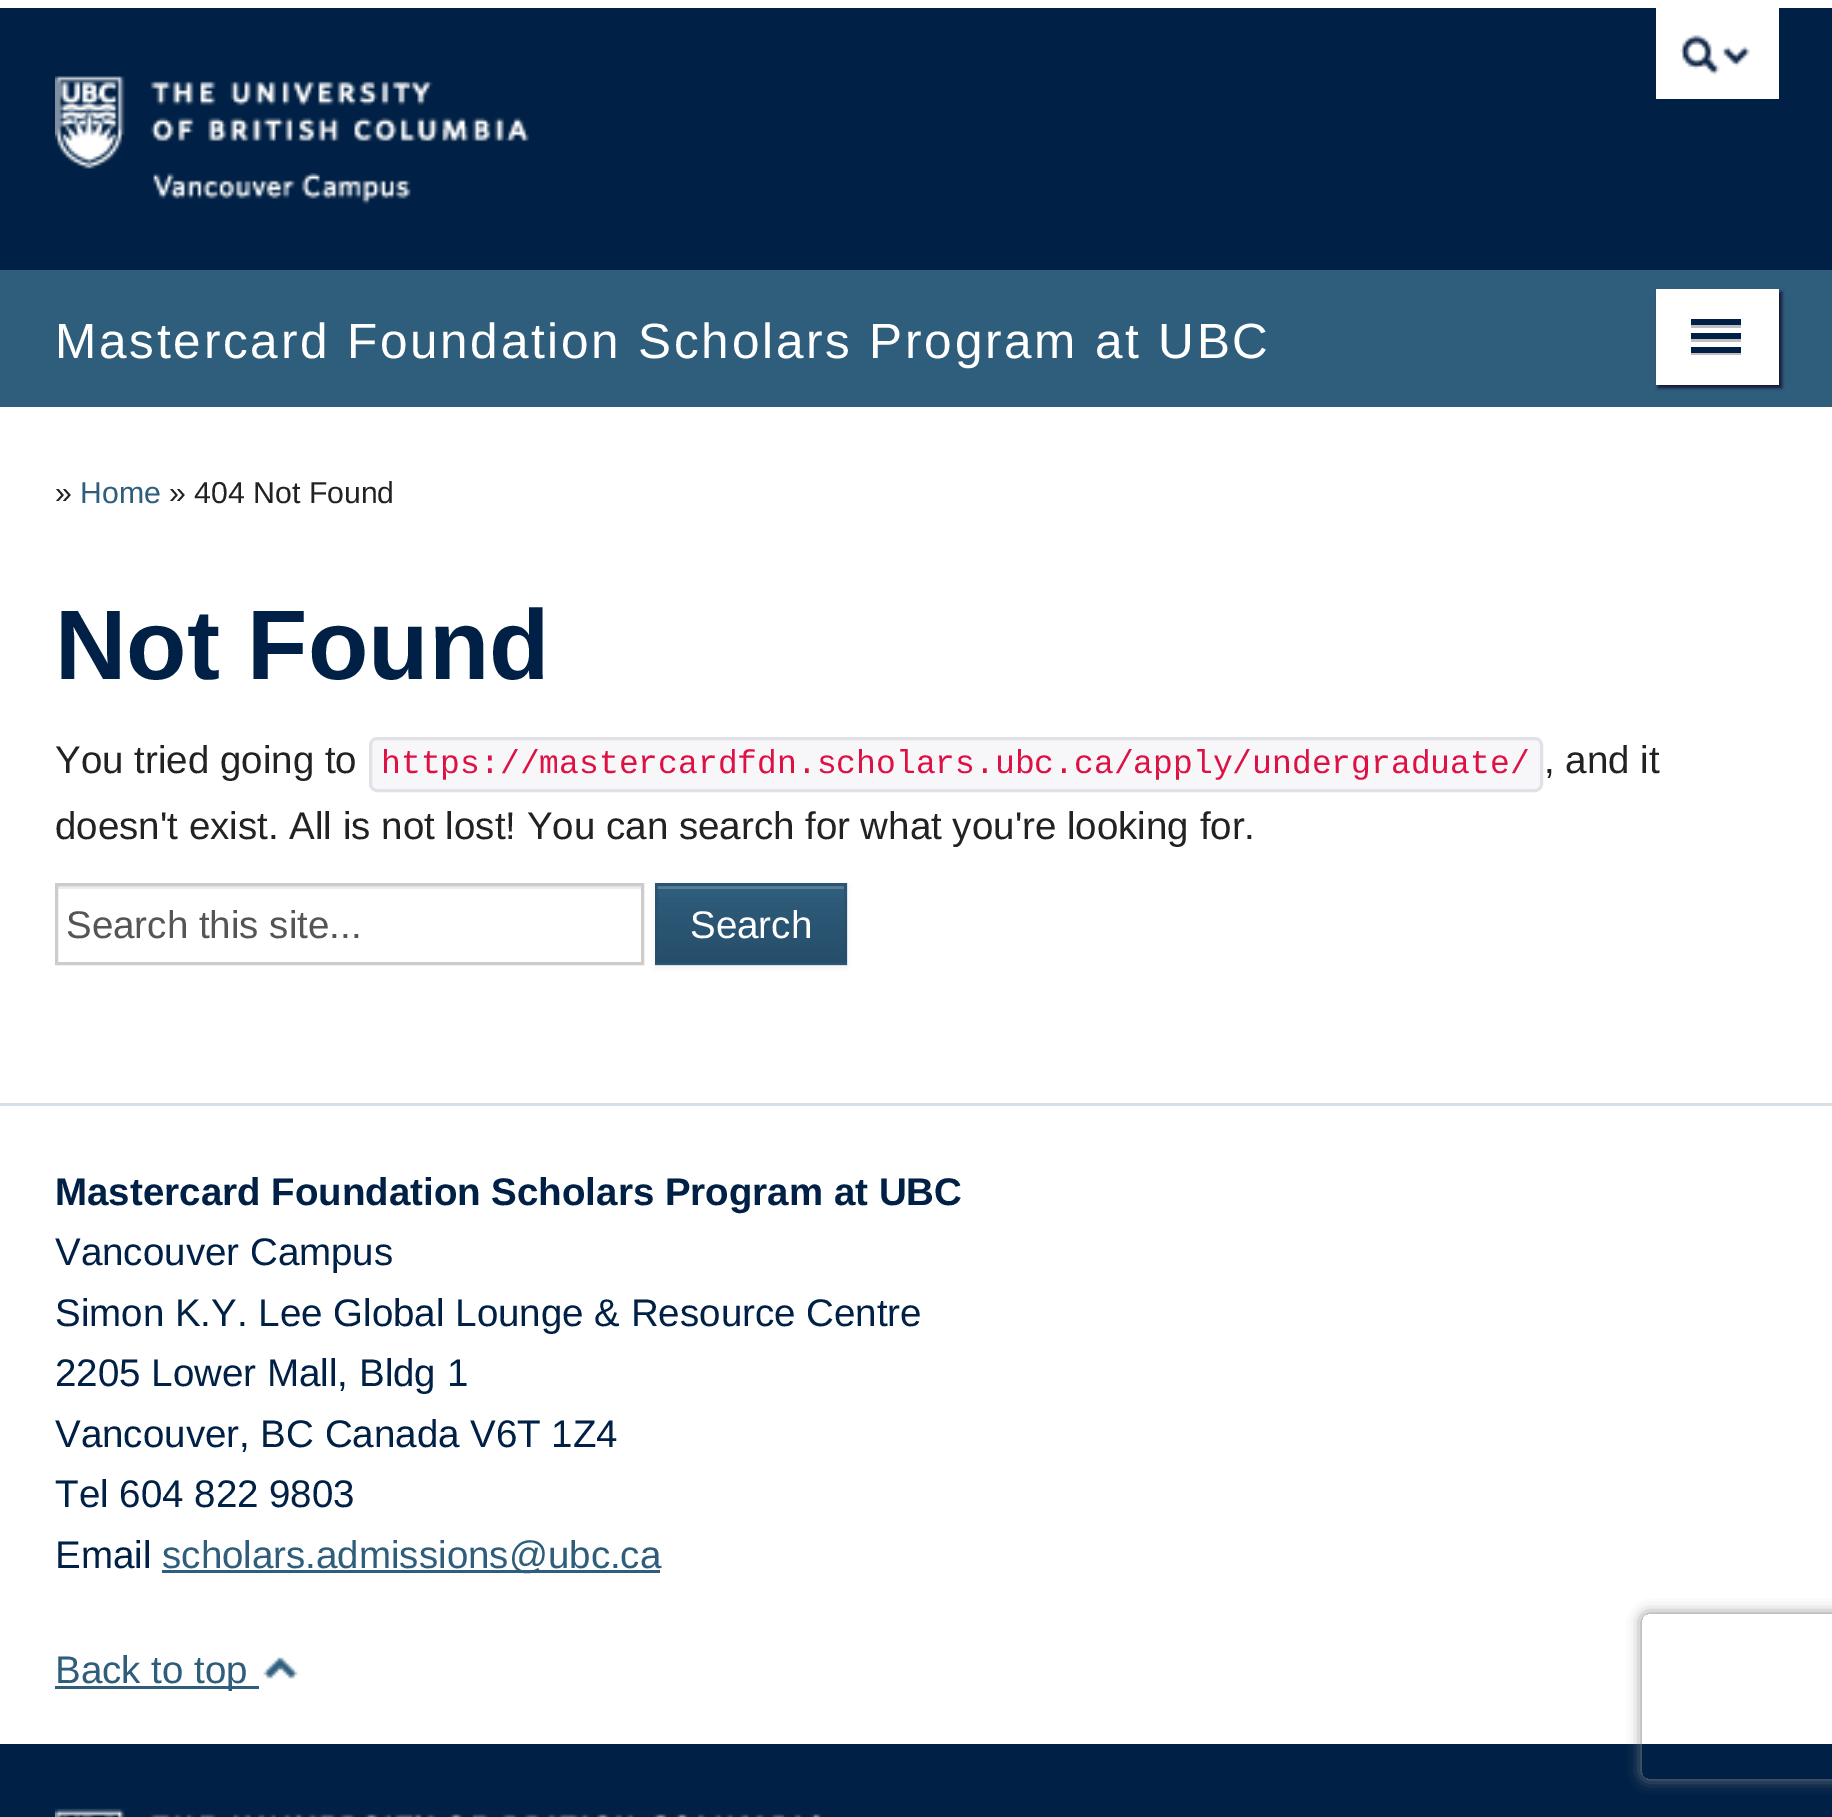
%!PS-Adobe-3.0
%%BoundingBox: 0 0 1832 1817
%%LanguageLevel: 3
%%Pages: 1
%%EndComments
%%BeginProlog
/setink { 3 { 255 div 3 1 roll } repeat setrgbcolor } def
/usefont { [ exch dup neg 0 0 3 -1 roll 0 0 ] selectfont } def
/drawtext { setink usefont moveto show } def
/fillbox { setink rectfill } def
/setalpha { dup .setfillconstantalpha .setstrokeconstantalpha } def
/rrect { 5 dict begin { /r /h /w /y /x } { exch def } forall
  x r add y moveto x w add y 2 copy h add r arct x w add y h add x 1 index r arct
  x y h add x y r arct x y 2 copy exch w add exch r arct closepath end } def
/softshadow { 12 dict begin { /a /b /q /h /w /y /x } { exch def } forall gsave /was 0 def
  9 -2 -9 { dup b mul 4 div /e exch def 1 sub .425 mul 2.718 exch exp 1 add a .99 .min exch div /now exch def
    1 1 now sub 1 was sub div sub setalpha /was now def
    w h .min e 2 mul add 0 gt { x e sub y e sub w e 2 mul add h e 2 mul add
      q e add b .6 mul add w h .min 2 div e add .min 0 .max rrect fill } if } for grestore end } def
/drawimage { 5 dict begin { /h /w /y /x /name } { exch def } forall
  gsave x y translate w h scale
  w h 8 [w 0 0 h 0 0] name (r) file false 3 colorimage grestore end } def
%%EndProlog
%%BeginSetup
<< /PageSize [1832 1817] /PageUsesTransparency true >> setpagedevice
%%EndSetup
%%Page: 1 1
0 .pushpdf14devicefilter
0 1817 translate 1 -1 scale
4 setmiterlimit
0 0 1832 1817 255 255 255 fillbox
0 8 1832 262 0 33 69 fillbox
(assets/img1.rgb) 55 76 474 93 drawimage
1656 8 123 91 255 255 255 fillbox
(assets/img2.rgb) 1680 35 70 40 drawimage
(assets/img3.rgb) 153 173 258 32 drawimage
0 270 1832 137 47 93 124 fillbox
/LiberationSans-Regular 49.5 usefont
255 255 255 setink
55 358 moveto 2.75 0 (Mastercard Foundation Scholars Program at UBC) ashow
25 25 56 setink
1658 292 124 96 0 1.5 1 softshadow
1656 289 123 96 255 255 255 fillbox
191 191 191 setink
1691 322 moveto 1691 328 lineto 1741 328 lineto 1741 322 lineto 1741 324 lineto 1691 324 lineto closepath fill
1691 319 50 6 0 33 69 fillbox
191 191 191 setink
1691 336 moveto 1691 342 lineto 1741 342 lineto 1741 336 lineto 1741 338 lineto 1691 338 lineto closepath fill
1691 333 50 6 0 33 69 fillbox
191 191 191 setink
1691 349 moveto 1691 355 lineto 1741 355 lineto 1741 349 lineto 1741 352 lineto 1691 352 lineto closepath fill
1691 347 50 6 0 33 69 fillbox
(») 55 503 /LiberationSans-Regular 30.25 34 34 34 drawtext
(Home) 80 503 /LiberationSans-Regular 30.25 47 93 124 drawtext
(» 404 Not Found) 169 503 /LiberationSans-Regular 30.25 34 34 34 drawtext
(Not Found) 55 679 /LiberationSans-Bold 99 0 33 69 drawtext
(You tried going to) 55 773 /LiberationSans-Regular 38.5 34 34 34 drawtext
247 247 249 setink
370.5 738.5 1171 52 6.5 rrect gsave fill grestore
225 225 232 setink
3 setlinewidth
stroke
(https://mastercardfdn.scholars.ubc.ca/apply/undergraduate/) 381 773 /LiberationMono-Regular 33 221 17 68 drawtext
(, and it) 1544 773 /LiberationSans-Regular 38.5 34 34 34 drawtext
(doesn't exist. All is not lost! You can search for what you're looking for.) 55 839 /LiberationSans-Regular 38.5 34 34 34 drawtext
58 886 583 3 236 236 236 fillbox
204 204 204 setink
56.5 884.5 586 79 rectstroke
(Search this site...) 66 938 /LiberationSans-Regular 38.5 85 85 85 drawtext
0 0 0 setink
655 886 192 82 0 3 0.05 softshadow
655 883 192 82 47 93 124 fillbox
gsave 655 897 moveto 847 897 lineto 847 963 lineto 655 963 lineto closepath clip newpath
<< /ShadingType 2 /ColorSpace /DeviceRGB /Coords [751 886 751 963] /Extend [true true] /Function << /FunctionType 2 /Domain [0 1] /C0 [0.184 0.365 0.486] /C1 [0.149 0.306 0.416] /N 1 >> >> shfill grestore
657 886 187 3 89 125 150 fillbox
0.5 setalpha
38 78 106 setink
656.5 884.5 189 79 rectstroke
1 setalpha
(Search) 690 938 /LiberationSans-Regular 38.5 255 255 255 drawtext
0 1744 1832 73 0 33 69 fillbox
0 1103 1832 3 215 224 231 fillbox
(Mastercard Foundation Scholars Program at UBC) 55 1205 /LiberationSans-Bold 38.5 0 33 69 drawtext
(Vancouver Campus) 55 1265 /LiberationSans-Regular 38.5 0 33 69 drawtext
(Simon K.Y. Lee Global Lounge & Resource Centre) 55 1326 /LiberationSans-Regular 38.5 0 33 69 drawtext
(2205 Lower Mall, Bldg 1) 55 1386 /LiberationSans-Regular 38.5 0 33 69 drawtext
(Vancouver, BC Canada V6T 1Z4) 55 1447 /LiberationSans-Regular 38.5 0 33 69 drawtext
(Tel 604 822 9803) 55 1507 /LiberationSans-Regular 38.5 0 33 69 drawtext
(Email) 55 1568 /LiberationSans-Regular 38.5 0 33 69 drawtext
162 1570 498 3 47 93 124 fillbox
(scholars.admissions@ubc.ca) 162 1568 /LiberationSans-Regular 38.5 47 93 124 drawtext
55 1686 204 3 47 93 124 fillbox
(Back to top) 55 1683 /LiberationSans-Regular 38.5 47 93 124 drawtext
(assets/img4.rgb) 263 1657 35 22 drawimage
(assets/img5.rgb) 55 1808 766 9 drawimage
gsave
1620 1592 moveto 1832 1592 lineto 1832 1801 lineto 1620 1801 lineto closepath 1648 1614 moveto 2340 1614 lineto 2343.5 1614 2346 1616.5 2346 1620 curveto 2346 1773 lineto 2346 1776.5 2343.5 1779 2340 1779 curveto 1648 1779 lineto 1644.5 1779 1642 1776.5 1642 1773 curveto 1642 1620 lineto 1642 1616.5 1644.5 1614 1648 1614 curveto closepath eoclip newpath
128 128 128 setink
1642 1614 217 165 6 7 1 softshadow
grestore
.poppdf14devicefilter showpage
%%EOF
